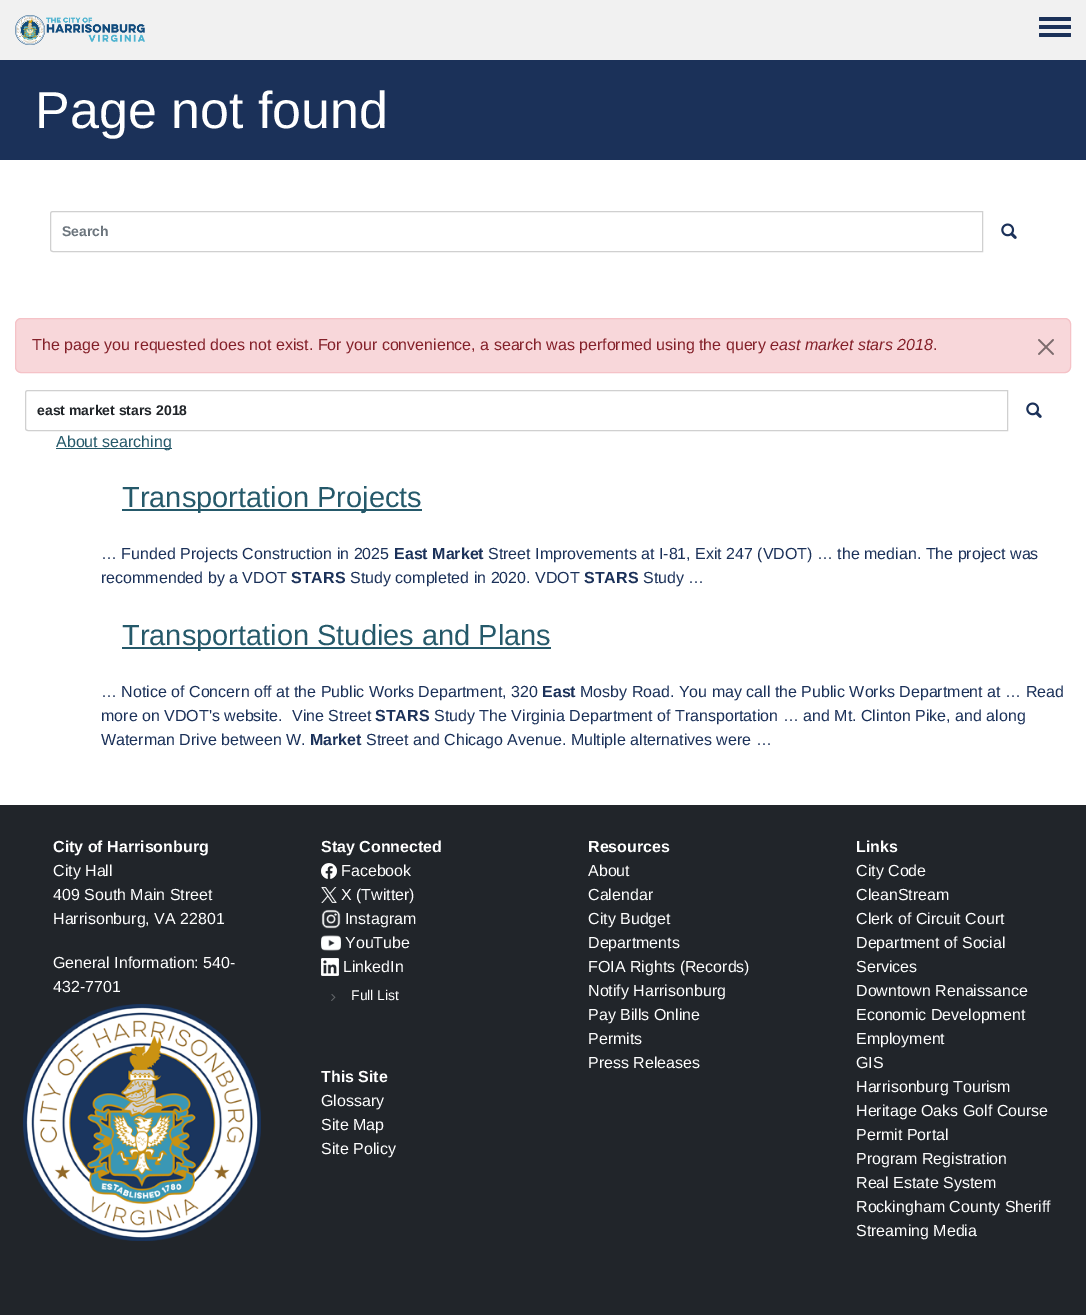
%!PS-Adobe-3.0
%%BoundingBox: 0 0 1086 1315
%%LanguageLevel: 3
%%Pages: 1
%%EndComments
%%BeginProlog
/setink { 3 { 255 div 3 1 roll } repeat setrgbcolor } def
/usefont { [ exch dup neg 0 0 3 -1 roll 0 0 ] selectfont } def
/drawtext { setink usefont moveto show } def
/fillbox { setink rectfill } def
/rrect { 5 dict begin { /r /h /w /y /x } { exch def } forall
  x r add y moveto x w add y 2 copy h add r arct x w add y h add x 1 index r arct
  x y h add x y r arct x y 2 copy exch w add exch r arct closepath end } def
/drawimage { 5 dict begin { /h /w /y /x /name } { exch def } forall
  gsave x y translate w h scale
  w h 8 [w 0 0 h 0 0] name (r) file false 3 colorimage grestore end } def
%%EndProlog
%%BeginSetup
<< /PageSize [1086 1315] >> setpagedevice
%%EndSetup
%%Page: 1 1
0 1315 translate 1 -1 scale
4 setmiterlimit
0 0 1086 1315 255 255 255 fillbox
0 0 1086 60 241 241 241 fillbox
(assets/img1.rgb) 15 15 130 30 drawimage
27 49 89 setink
1039 25 32 4 1 rrect fill
1039 17 32 4 1 rrect fill
1039 33 32 4 1 rrect fill
0 60 1086 100 27 49 89 fillbox
(Page not found) 35 128 /LiberationSans-Regular 52 255 255 255 drawtext
208 208 208 setink
53 211.5 moveto 982.5 211.5 lineto 982.5 251.5 lineto 53 251.5 lineto 51.5 251.5 50.5 250.5 50.5 249 curveto 50.5 214 lineto 50.5 212.5 51.5 211.5 53 211.5 curveto closepath stroke
(Search) 62 236 /LiberationSans-Bold 14 108 117 125 drawtext
(assets/img2.rgb) 1001 223 16 16 drawimage
248 215 218 setink
15.5 318.5 1055 54 5.5 rrect gsave fill grestore
245 194 199 setink
stroke
(The page you requested does not exist. For your convenience, a search was performed using the query) 32 350 /LiberationSans-Regular 16 132 32 41 drawtext
(east market stars 2018) 770 350 /LiberationSans-Italic 16 132 32 41 drawtext
(.) 933 350 /LiberationSans-Regular 16 132 32 41 drawtext
(assets/img3.rgb) 1038 339 16 16 drawimage
208 208 208 setink
28 390.5 moveto 1007.5 390.5 lineto 1007.5 430.5 lineto 28 430.5 lineto 26.5 430.5 25.5 429.5 25.5 428 curveto 25.5 393 lineto 25.5 391.5 26.5 390.5 28 390.5 curveto closepath stroke
(east market stars 2018) 37 415 /LiberationSans-Bold 14 33 37 41 drawtext
(assets/img2.rgb) 1026 402 16 16 drawimage
56 448 116 1 37 89 106 fillbox
(About searching) 56 447 /LiberationSans-Regular 16 37 89 106 drawtext
122 509 300 2 37 89 106 fillbox
(Transportation Projects) 122 507 /LiberationSans-Regular 29 37 89 106 drawtext
(… Funded Projects Construction in 2025) 101 559 /LiberationSans-Regular 16 27 49 89 drawtext
(East Market) 394 559 /LiberationSans-Bold 16 27 49 89 drawtext
(Street Improvements at I-81, Exit 247 \(VDOT\) … the median. The project was) 488 559 /LiberationSans-Regular 16 27 49 89 drawtext
(recommended by a VDOT) 101 583 /LiberationSans-Regular 16 27 49 89 drawtext
(STARS) 291 583 /LiberationSans-Bold 16 27 49 89 drawtext
(Study completed in 2020. VDOT) 350 583 /LiberationSans-Regular 16 27 49 89 drawtext
(STARS) 584 583 /LiberationSans-Bold 16 27 49 89 drawtext
(Study …) 643 583 /LiberationSans-Regular 16 27 49 89 drawtext
122 647 429 2 37 89 106 fillbox
(Transportation Studies and Plans) 122 645 /LiberationSans-Regular 29 37 89 106 drawtext
(… Notice of Concern off at the Public Works Department, 320) 101 697 /LiberationSans-Regular 16 27 49 89 drawtext
(East) 542 697 /LiberationSans-Bold 16 27 49 89 drawtext
(Mosby Road. You may call the Public Works Department at … Read) 580 697 /LiberationSans-Regular 16 27 49 89 drawtext
(more on VDOT's website.) 101 721 /LiberationSans-Regular 16 27 49 89 drawtext
(Vine Street) 292 721 /LiberationSans-Regular 16 27 49 89 drawtext
(STARS) 375 721 /LiberationSans-Bold 16 27 49 89 drawtext
(Study The Virginia Department of Transportation … and Mt. Clinton Pike, and along) 434 721 /LiberationSans-Regular 16 27 49 89 drawtext
(Waterman Drive between W.) 101 745 /LiberationSans-Regular 16 27 49 89 drawtext
(Market) 310 745 /LiberationSans-Bold 16 27 49 89 drawtext
(Street and Chicago Avenue. Multiple alternatives were …) 366 745 /LiberationSans-Regular 16 27 49 89 drawtext
0 805 1086 510 33 37 42 fillbox
(City of Harrisonburg) 53 852 /LiberationSans-Bold 16 255 255 255 drawtext
(City Hall) 53 876 /LiberationSans-Regular 16 255 255 255 drawtext
(409 South Main Street) 53 900 /LiberationSans-Regular 16 255 255 255 drawtext
(Harrisonburg, VA 22801) 53 924 /LiberationSans-Regular 16 255 255 255 drawtext
(General Information: 540-) 53 968 /LiberationSans-Regular 16 255 255 255 drawtext
(432-7701) 53 992 /LiberationSans-Regular 16 255 255 255 drawtext
(assets/img4.rgb) 23 1004 238 237 drawimage
(Stay Connected) 321 852 /LiberationSans-Bold 16 255 255 255 drawtext
(assets/img5.rgb) 321 863 16 16 drawimage
(Facebook) 341 876 /LiberationSans-Regular 16 255 255 255 drawtext
(assets/img6.rgb) 321 887 16 16 drawimage
(X \(Twitter\)) 341 900 /LiberationSans-Regular 16 255 255 255 drawtext
(assets/img7.rgb) 321 909 20 20 drawimage
(Instagram) 345 924 /LiberationSans-Regular 16 255 255 255 drawtext
(assets/img8.rgb) 321 935 20 16 drawimage
(YouTube) 345 948 /LiberationSans-Regular 16 255 255 255 drawtext
(assets/img9.rgb) 321 958 18 18 drawimage
(LinkedIn) 343 972 /LiberationSans-Regular 16 255 255 255 drawtext
(assets/img10.rgb) 331 994 5 7 drawimage
(Full List) 351 1000 /LiberationSans-Regular 14 255 255 255 drawtext
(This Site) 321 1082 /LiberationSans-Bold 16 255 255 255 drawtext
(Glossary) 321 1106 /LiberationSans-Regular 16 255 255 255 drawtext
(Site Map) 321 1130 /LiberationSans-Regular 16 255 255 255 drawtext
(Site Policy) 321 1154 /LiberationSans-Regular 16 255 255 255 drawtext
(Resources) 588 852 /LiberationSans-Bold 16 255 255 255 drawtext
(About) 588 876 /LiberationSans-Regular 16 255 255 255 drawtext
(Calendar) 588 900 /LiberationSans-Regular 16 255 255 255 drawtext
(City Budget) 588 924 /LiberationSans-Regular 16 255 255 255 drawtext
(Departments) 588 948 /LiberationSans-Regular 16 255 255 255 drawtext
(FOIA Rights \(Records\)) 588 972 /LiberationSans-Regular 16 255 255 255 drawtext
(Notify Harrisonburg) 588 996 /LiberationSans-Regular 16 255 255 255 drawtext
(Pay Bills Online) 588 1020 /LiberationSans-Regular 16 255 255 255 drawtext
(Permits) 588 1044 /LiberationSans-Regular 16 255 255 255 drawtext
(Press Releases) 588 1068 /LiberationSans-Regular 16 255 255 255 drawtext
(Links) 856 852 /LiberationSans-Bold 16 255 255 255 drawtext
(City Code) 856 876 /LiberationSans-Regular 16 255 255 255 drawtext
(CleanStream) 856 900 /LiberationSans-Regular 16 255 255 255 drawtext
(Clerk of Circuit Court) 856 924 /LiberationSans-Regular 16 255 255 255 drawtext
(Department of Social) 856 948 /LiberationSans-Regular 16 255 255 255 drawtext
(Services) 856 972 /LiberationSans-Regular 16 255 255 255 drawtext
(Downtown Renaissance) 856 996 /LiberationSans-Regular 16 255 255 255 drawtext
(Economic Development) 856 1020 /LiberationSans-Regular 16 255 255 255 drawtext
(Employment) 856 1044 /LiberationSans-Regular 16 255 255 255 drawtext
(GIS) 856 1068 /LiberationSans-Regular 16 255 255 255 drawtext
(Harrisonburg Tourism) 856 1092 /LiberationSans-Regular 16 255 255 255 drawtext
(Heritage Oaks Golf Course) 856 1116 /LiberationSans-Regular 16 255 255 255 drawtext
(Permit Portal) 856 1140 /LiberationSans-Regular 16 255 255 255 drawtext
(Program Registration) 856 1164 /LiberationSans-Regular 16 255 255 255 drawtext
(Real Estate System) 856 1188 /LiberationSans-Regular 16 255 255 255 drawtext
(Rockingham County Sheriff) 856 1212 /LiberationSans-Regular 16 255 255 255 drawtext
(Streaming Media) 856 1236 /LiberationSans-Regular 16 255 255 255 drawtext
showpage
%%EOF
